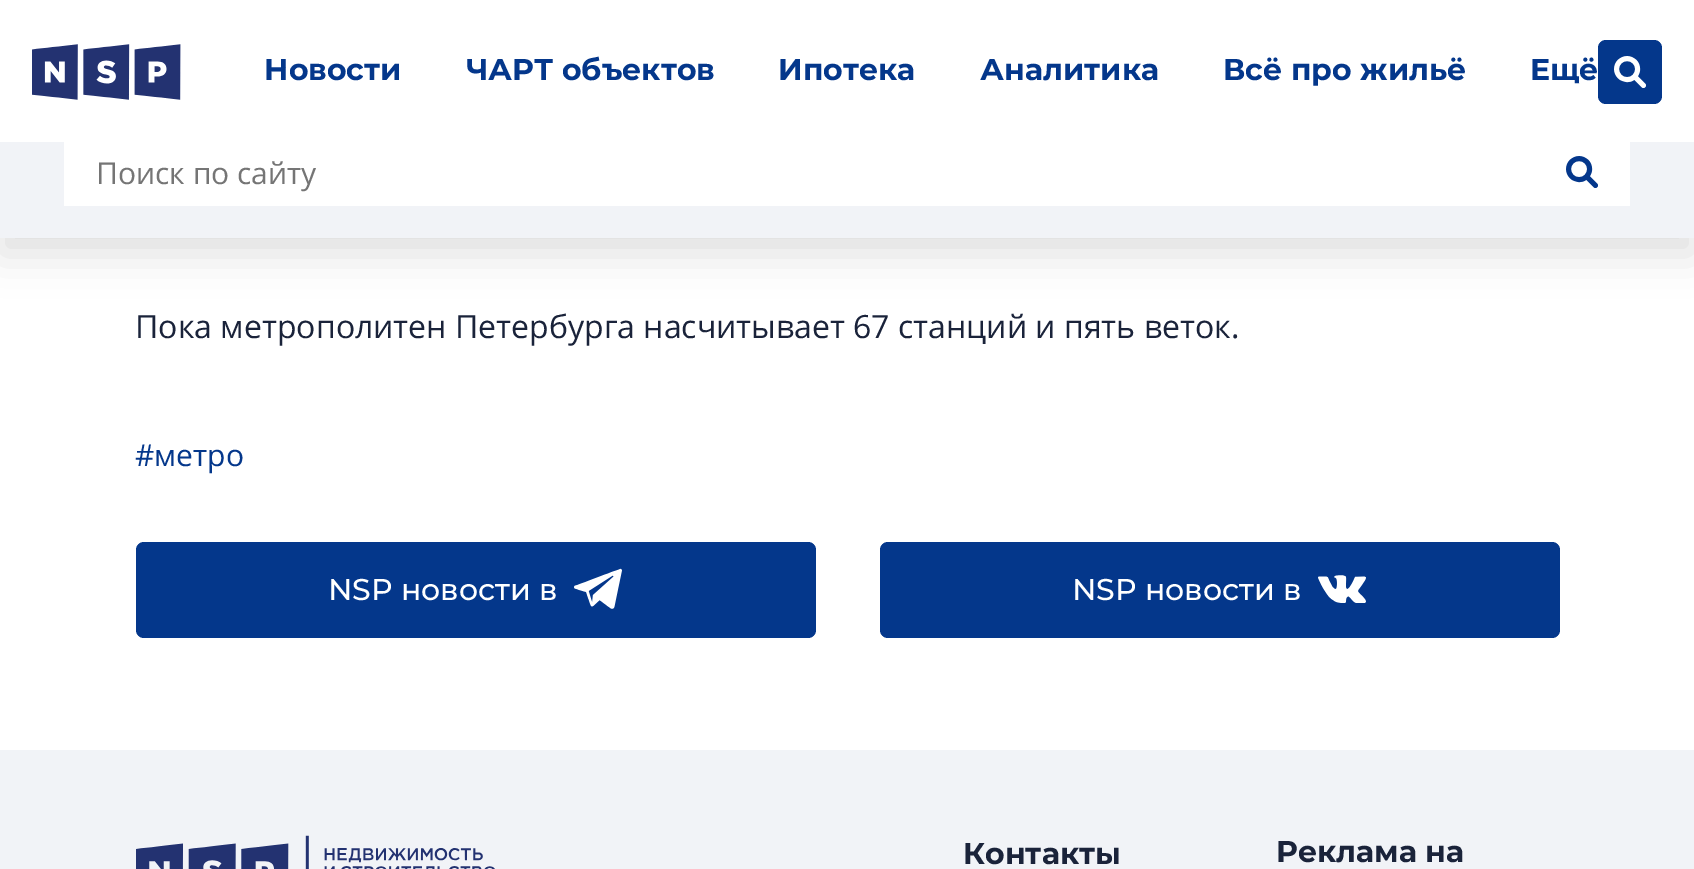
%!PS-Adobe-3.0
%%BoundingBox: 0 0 1694 869
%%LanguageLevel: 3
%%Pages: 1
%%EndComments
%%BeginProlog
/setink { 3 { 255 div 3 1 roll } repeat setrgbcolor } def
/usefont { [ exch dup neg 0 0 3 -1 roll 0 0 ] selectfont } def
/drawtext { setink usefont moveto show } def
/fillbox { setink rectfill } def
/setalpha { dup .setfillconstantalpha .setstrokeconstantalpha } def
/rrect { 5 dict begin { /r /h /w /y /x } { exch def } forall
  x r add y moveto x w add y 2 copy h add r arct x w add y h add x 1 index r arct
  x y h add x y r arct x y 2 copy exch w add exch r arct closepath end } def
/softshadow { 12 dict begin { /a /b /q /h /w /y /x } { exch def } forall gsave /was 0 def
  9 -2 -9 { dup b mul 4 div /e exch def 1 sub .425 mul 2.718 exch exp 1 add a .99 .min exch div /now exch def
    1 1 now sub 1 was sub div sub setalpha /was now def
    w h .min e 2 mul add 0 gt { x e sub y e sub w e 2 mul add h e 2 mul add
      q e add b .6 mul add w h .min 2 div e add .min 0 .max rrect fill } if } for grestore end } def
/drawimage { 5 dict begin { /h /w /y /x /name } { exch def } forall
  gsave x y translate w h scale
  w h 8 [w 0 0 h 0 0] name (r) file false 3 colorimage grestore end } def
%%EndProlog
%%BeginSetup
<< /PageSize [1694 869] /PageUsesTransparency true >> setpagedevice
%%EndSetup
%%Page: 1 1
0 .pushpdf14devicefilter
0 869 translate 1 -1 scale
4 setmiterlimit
0 0 1694 869 255 255 255 fillbox
0 0 0 setink
0 16 1694 238 0 20 0.12 softshadow
0 0 1694 142 255 255 255 fillbox
(assets/img1.rgb) 32 44 149 56 drawimage
(Новости) 264 80 /Montserrat-Bold 30 4 55 139 drawtext
(ЧАРТ объектов) 466 80 /Montserrat-Bold 30 4 55 139 drawtext
(Ипотека) 778 80 /Montserrat-Bold 30 4 55 139 drawtext
(Аналитика) 980 80 /Montserrat-Bold 30 4 55 139 drawtext
(Всё про жильё) 1223 80 /Montserrat-Bold 30 4 55 139 drawtext
(Ещё) 1530 80 /Montserrat-Bold 30 4 55 139 drawtext
1598 40 64 64 8 rrect fill
(assets/img2.rgb) 1614 56 32 32 drawimage
0 142 1694 96 241 243 247 fillbox
64 142 1566 64 255 255 255 fillbox
(Поиск по сайту) 96 184 /OpenSans-Regular 30 117 117 117 drawtext
(assets/img3.rgb) 1566 156 32 32 drawimage
(Пока метрополитен Петербурга насчитывает 67 станций и пять веток.) 135 338 /OpenSans-Regular 32 26 35 58 drawtext
(#метро) 135 466 /OpenSans-Regular 30 4 55 139 drawtext
136 542 680 96 8 rrect fill
(NSP новости в) 328 600 /Montserrat-Medium 30 255 255 255 drawtext
(assets/img4.rgb) 574 568 48 41 drawimage
4 55 139 setink
880 542 680 96 8 rrect fill
(NSP новости в) 1072 600 /Montserrat-Medium 30 255 255 255 drawtext
(assets/img5.rgb) 1318 575 48 28 drawimage
0 750 1694 119 241 243 247 fillbox
(assets/img6.rgb) 136 835 359 34 drawimage
(Контакты) 963 864 /Montserrat-Bold 30 26 35 58 drawtext
(Реклама на) 1276 862 /Montserrat-Bold 30 26 35 58 drawtext
.poppdf14devicefilter showpage
%%EOF
